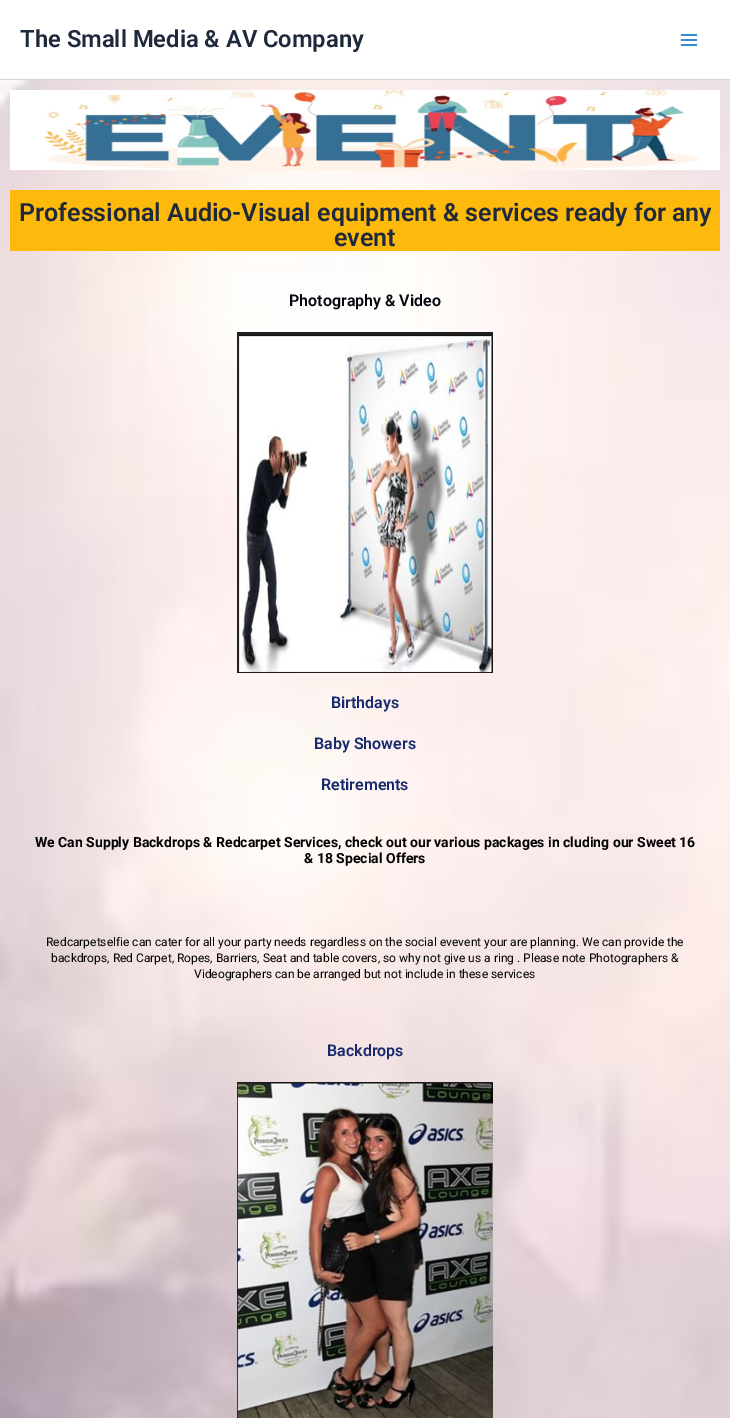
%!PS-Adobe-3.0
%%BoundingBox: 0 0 730 1418
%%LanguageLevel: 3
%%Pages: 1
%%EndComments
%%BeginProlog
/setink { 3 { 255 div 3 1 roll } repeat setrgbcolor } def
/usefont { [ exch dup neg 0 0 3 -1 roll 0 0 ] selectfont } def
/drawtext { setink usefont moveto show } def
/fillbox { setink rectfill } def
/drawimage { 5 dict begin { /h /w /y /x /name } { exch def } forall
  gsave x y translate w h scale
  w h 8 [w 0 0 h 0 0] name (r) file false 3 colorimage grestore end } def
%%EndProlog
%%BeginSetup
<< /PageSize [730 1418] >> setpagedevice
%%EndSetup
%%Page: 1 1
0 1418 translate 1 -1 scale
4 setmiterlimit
0 0 730 1418 255 255 255 fillbox
0 79 730 1 209 213 219 fillbox
(The Small Media & AV Company) 20 47 /Roboto-SemiBold 23.75 30 41 59 drawtext
(assets/img1.rgb) 680 34 18 12 drawimage
(assets/img2.rgb) 0 80 730 1338 drawimage
(assets/img3.rgb) 10 90 710 80 drawimage
10 190 710 61 253 185 12 fillbox
(Professional Audio-Visual equipment & services ready for any) 19 221 /Roboto-SemiBold 25 30 41 59 drawtext
(event) 334 246 /Roboto-SemiBold 25 30 41 59 drawtext
(Photography & Video) 289 306 /Roboto-SemiBold 16 2 4 15 drawtext
(assets/img4.rgb) 237 332 256 341 drawimage
(Birthdays) 331 708 /Roboto-SemiBold 16 24 42 109 drawtext
(Baby Showers) 314 749 /Roboto-SemiBold 16 24 42 109 drawtext
(Retirements) 321 790 /Roboto-SemiBold 16 24 42 109 drawtext
(We Can Supply Backdrops & Redcarpet Services, check out our various packages in cluding our Sweet 16) 35 847 /Roboto-Bold 14 0 0 0 drawtext
(& 18 Special Offers) 304 863 /Roboto-Bold 14 0 0 0 drawtext
(Redcarpetselfie can cater for all your party needs regardless on the social evevent your are planning. We can provide the) 46 946 /Roboto-Regular 12 0 0 0 drawtext
(backdrops, Red Carpet, Ropes, Barriers, Seat and table covers, so why not give us a ring . Please note Photographers &) 51 962 /Roboto-Regular 12 0 0 0 drawtext
(Videographers can be arranged but not include in these services) 194 978 /Roboto-Regular 12 0 0 0 drawtext
(Backdrops) 327 1056 /Roboto-SemiBold 16 24 42 109 drawtext
(assets/img5.rgb) 237 1082 256 336 drawimage
showpage
%%EOF
